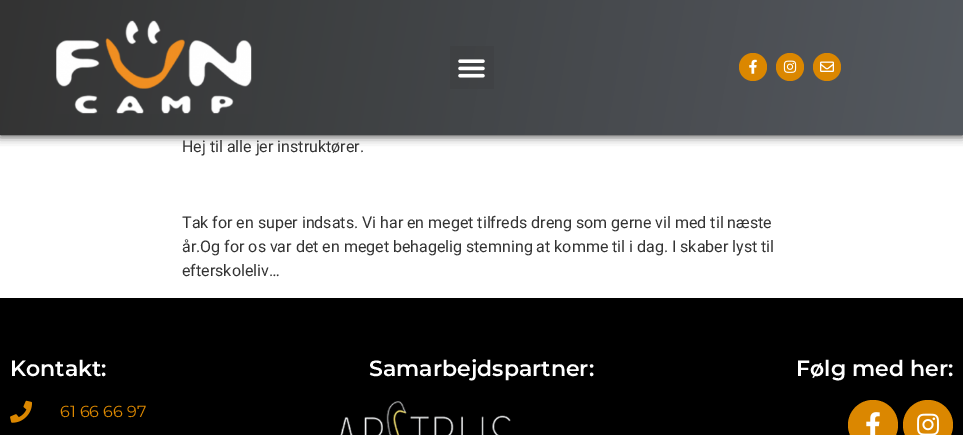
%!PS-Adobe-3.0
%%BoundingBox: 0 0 963 435
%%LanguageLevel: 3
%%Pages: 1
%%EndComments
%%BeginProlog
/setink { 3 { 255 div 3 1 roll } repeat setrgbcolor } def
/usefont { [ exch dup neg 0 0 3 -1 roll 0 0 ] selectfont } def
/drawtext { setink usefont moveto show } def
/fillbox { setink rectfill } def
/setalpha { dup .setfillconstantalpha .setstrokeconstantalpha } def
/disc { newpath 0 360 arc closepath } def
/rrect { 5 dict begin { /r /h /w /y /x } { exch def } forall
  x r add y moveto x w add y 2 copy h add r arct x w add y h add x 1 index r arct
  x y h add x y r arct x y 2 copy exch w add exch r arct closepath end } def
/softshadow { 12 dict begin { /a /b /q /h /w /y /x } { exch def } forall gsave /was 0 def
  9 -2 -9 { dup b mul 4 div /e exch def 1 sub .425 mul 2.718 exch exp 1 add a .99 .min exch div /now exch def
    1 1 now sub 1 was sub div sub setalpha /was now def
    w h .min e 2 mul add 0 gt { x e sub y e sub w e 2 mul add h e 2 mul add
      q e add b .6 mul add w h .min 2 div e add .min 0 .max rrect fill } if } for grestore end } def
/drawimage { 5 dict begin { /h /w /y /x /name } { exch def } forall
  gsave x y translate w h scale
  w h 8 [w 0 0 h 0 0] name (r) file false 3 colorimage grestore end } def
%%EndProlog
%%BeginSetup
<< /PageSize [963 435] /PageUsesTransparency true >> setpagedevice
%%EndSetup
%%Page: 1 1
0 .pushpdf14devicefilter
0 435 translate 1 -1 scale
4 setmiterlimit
0 0 963 435 255 255 255 fillbox
0 0 0 setink
0 0 963 135 0 5 1 softshadow
gsave 0 0 moveto 963 0 lineto 963 135 lineto 0 135 lineto closepath clip newpath
<< /ShadingType 2 /ColorSpace /DeviceRGB /Coords [3 -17 960 152] /Extend [true true] /Function << /FunctionType 2 /Domain [0 1] /C0 [0.2 0.2 0.2] /C1 [0.329 0.349 0.373] /N 1 >> >> shfill grestore
gsave 450 46 moveto 494 46 lineto 494 89 lineto 450 89 lineto closepath clip newpath
<< /ShadingType 2 /ColorSpace /DeviceRGB /Coords [3 -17 960 152] /Extend [true true] /Function << /FunctionType 2 /Domain [0 1] /C0 [0.188 0.188 0.188] /C1 [0.314 0.333 0.353] /N 1 >> >> shfill grestore
(assets/img1.rgb) 56 20 196 94 drawimage
(assets/img2.rgb) 458 59 27 19 drawimage
219 135 0 setink
753 67 14 disc fill
(assets/img3.rgb) 749 59 8 15 drawimage
790 67 14 disc fill
(assets/img4.rgb) 783 60 14 13 drawimage
827 67 14 disc fill
(assets/img5.rgb) 820 61 14 11 drawimage
(Hej til alle jer instruktører.) 182 152 /Roboto-Regular 16 51 51 51 drawtext
(Tak for en super indsats. Vi har en meget tilfreds dreng som gerne vil med til næste) 182 228 /Roboto-Regular 16 51 51 51 drawtext
(år.Og for os var det en meget behagelig stemning at komme til i dag. I skaber lyst til) 182 252 /Roboto-Regular 16 51 51 51 drawtext
(efterskoleliv…) 182 276 /Roboto-Regular 16 51 51 51 drawtext
0 298 963 137 0 0 0 fillbox
(Kontakt:) 10 376 /Montserrat-SemiBold 22 255 255 255 drawtext
(assets/img6.rgb) 10 400 22 23 drawimage
(61 66 66 97) 60 417 /Montserrat-Regular 16 219 135 0 drawtext
(Samarbejdspartner:) 369 376 /Montserrat-SemiBold 22 255 255 255 drawtext
(assets/img7.rgb) 340 401 171 34 drawimage
(Følg med her:) 796 376 /Montserrat-SemiBold 22 255 255 255 drawtext
219 135 0 setink
873 425 25 disc fill
(assets/img8.rgb) 866 412 14 23 drawimage
928 425 25 disc fill
(assets/img9.rgb) 917 413 22 22 drawimage
.poppdf14devicefilter showpage
%%EOF
